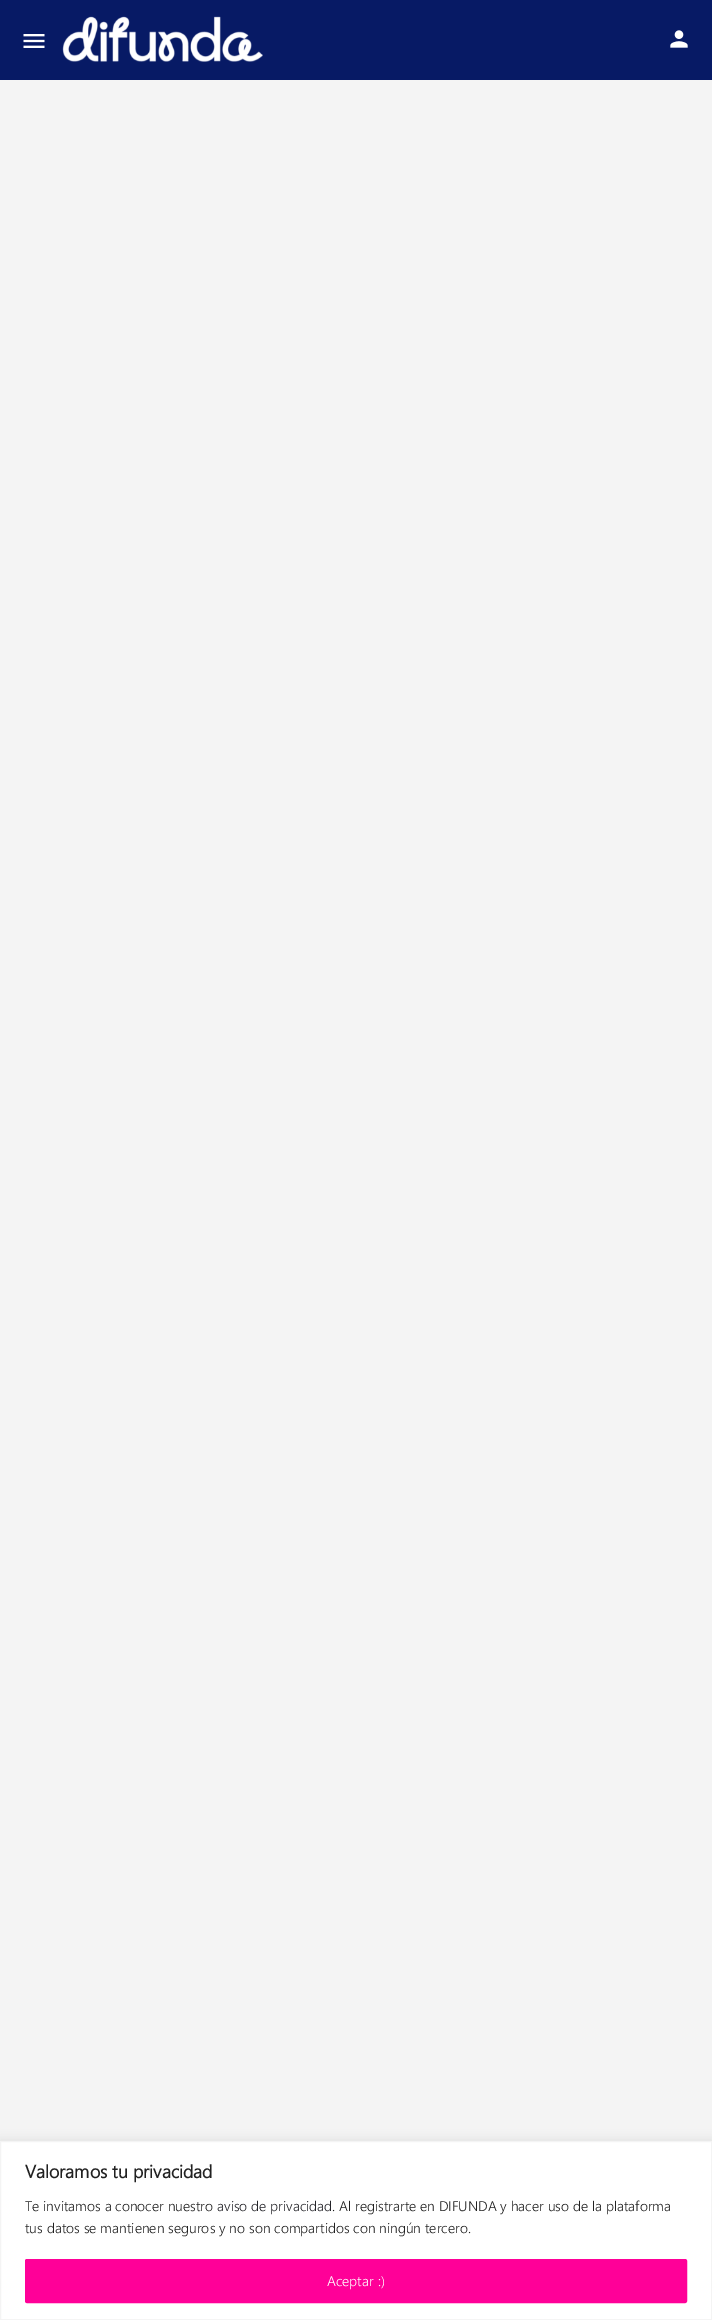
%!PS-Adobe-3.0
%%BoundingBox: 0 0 712 2320
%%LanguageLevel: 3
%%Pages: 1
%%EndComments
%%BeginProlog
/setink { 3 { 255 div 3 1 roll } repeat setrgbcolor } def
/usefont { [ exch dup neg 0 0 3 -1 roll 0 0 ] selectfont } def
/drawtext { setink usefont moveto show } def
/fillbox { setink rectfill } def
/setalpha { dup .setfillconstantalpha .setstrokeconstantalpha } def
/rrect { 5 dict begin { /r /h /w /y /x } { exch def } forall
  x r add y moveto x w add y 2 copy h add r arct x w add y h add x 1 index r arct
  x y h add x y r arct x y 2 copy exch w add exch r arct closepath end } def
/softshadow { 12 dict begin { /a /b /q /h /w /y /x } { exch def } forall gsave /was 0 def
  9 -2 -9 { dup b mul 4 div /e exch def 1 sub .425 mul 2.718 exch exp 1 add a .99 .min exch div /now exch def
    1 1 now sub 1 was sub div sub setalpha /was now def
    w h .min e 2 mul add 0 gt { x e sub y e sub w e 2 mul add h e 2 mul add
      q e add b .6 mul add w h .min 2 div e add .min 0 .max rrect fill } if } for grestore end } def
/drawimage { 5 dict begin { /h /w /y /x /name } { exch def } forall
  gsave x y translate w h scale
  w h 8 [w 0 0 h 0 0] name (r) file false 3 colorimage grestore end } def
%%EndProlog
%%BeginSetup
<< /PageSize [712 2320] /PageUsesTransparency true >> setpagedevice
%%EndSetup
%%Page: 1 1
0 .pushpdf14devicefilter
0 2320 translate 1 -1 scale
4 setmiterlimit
0 0 712 2320 244 244 244 fillbox
0 0 712 80 7 26 101 fillbox
(assets/img1.rgb) 23 34 22 14 drawimage
(assets/img2.rgb) 62 16 201 46 drawimage
(assets/img3.rgb) 670 30 18 18 drawimage
172 171 171 setink
0 2140 712 179 0 5 0.3 softshadow
255 255 255 setink
0.5 2141.5 moveto 711.5 2141.5 lineto 711.5 2319.5 lineto 0.5 2319.5 lineto closepath gsave fill grestore
244 244 244 setink
stroke
(Valoramos tu privacidad) 25 2178 /SegoeUI-Bold 18 33 33 33 drawtext
(Te invitamos a conocer nuestro) 25 2211 /SegoeUI-Light 14 33 33 33 drawtext
(aviso de privacidad) 217 2211 /SegoeUI-Light 14 36 36 41 drawtext
(. Al registrarte en DIFUNDA y hacer uso de la plataforma) 332 2211 /SegoeUI-Light 14 33 33 33 drawtext
(tus datos se mantienen seguros y no son compartidos con ningún tercero.) 25 2233 /SegoeUI-Light 14 33 33 33 drawtext
255 0 152 setink
26 2260 660 42 1 rrect gsave fill grestore
2 setlinewidth
stroke
(Aceptar :\)) 327 2286 /SegoeUI-Light 14 255 255 255 drawtext
.poppdf14devicefilter showpage
%%EOF
